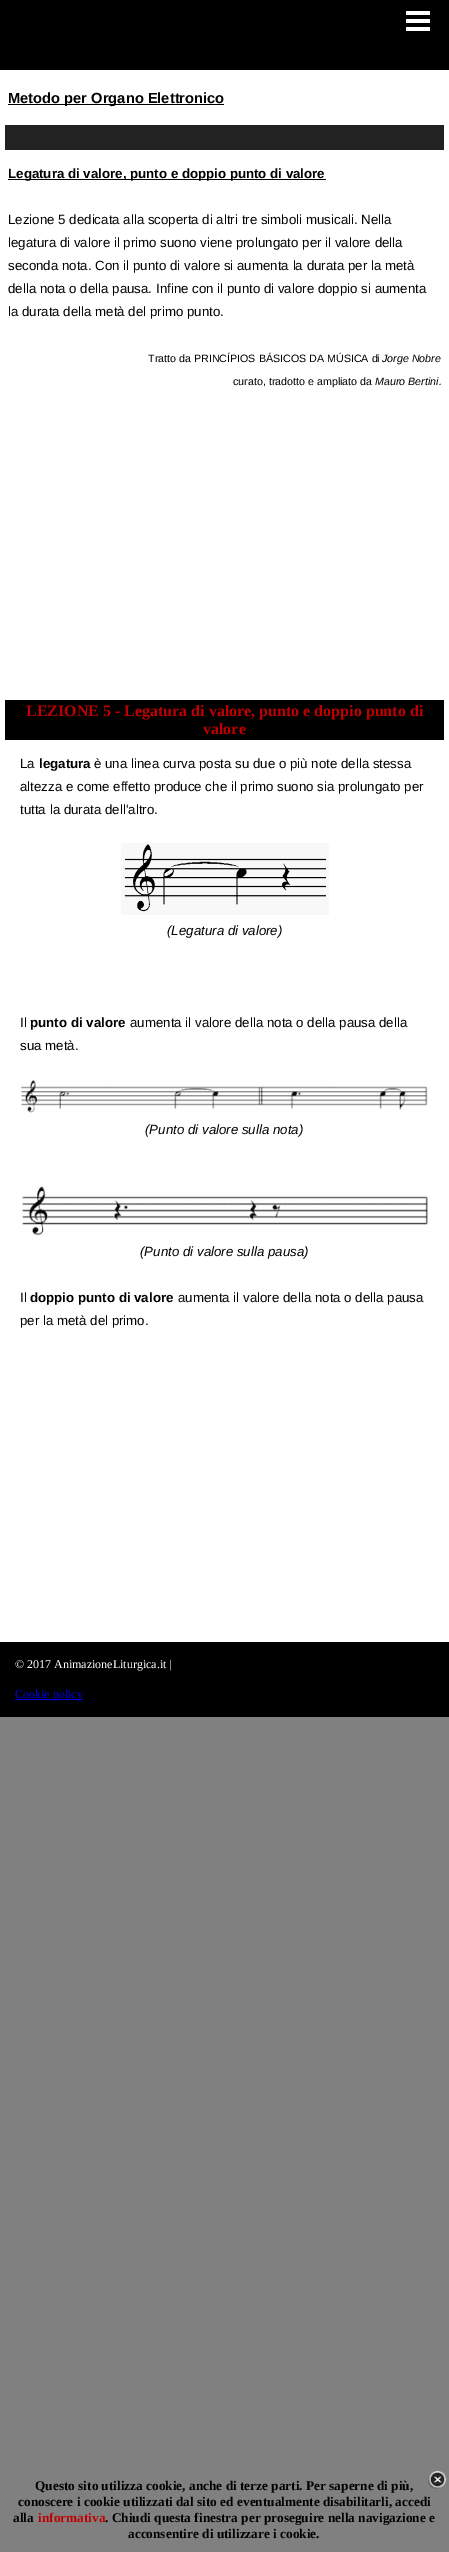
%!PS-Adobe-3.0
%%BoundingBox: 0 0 449 2552
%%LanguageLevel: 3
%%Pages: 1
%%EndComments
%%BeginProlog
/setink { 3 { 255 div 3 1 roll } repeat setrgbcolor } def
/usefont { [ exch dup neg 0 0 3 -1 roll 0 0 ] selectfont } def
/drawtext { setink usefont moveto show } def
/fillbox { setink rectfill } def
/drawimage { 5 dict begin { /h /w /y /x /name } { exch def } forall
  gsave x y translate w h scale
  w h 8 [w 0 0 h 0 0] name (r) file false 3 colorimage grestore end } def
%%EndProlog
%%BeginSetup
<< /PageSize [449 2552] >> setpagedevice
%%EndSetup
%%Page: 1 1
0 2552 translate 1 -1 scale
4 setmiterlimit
0 0 449 2552 128 128 128 fillbox
0 0 449 70 0 0 0 fillbox
406 11 24 4 255 255 255 fillbox
406 19 24 4 255 255 255 fillbox
406 27 24 4 255 255 255 fillbox
0 70 449 1572 255 255 255 fillbox
8 104 216 1 0 0 0 fillbox
(Metodo per Organo Elettronico) 8 103 /LiberationSans-Bold 14.7 0 0 0 drawtext
5 125 439 25 34 34 34 fillbox
8 179 318 1 0 0 0 fillbox
(Legatura di valore, punto e doppio punto di valore) 8 178 /LiberationSans-Bold 13.3 0 0 0 drawtext
(Lezione 5 dedicata alla scoperta di altri tre simboli musicali. Nella) 8 224 /LiberationSans-Regular 13.3 0 0 0 drawtext
(legatura di valore il primo suono viene prolungato per il valore della) 8 247 /LiberationSans-Regular 13.3 0 0 0 drawtext
(seconda nota. Con il punto di valore si aumenta la durata per la metà) 8 270 /LiberationSans-Regular 13.3 0 0 0 drawtext
(della nota o della pausa. Infine con il punto di valore doppio si aumenta) 8 293 /LiberationSans-Regular 13.3 0 0 0 drawtext
(la durata della metà del primo punto.) 8 316 /LiberationSans-Regular 13.3 0 0 0 drawtext
(Tratto da PRINCÍPIOS BÁSICOS DA MÚSICA di) 148 362 /LiberationSans-Regular 10.7 0 0 0 drawtext
(Jorge Nobre) 382 362 /LiberationSans-Italic 10.7 0 0 0 drawtext
(curato, tradotto e ampliato da) 233 385 /LiberationSans-Regular 10.7 0 0 0 drawtext
(Mauro Bertini.) 375 385 /LiberationSans-Italic 10.7 0 0 0 drawtext
5 700 439 40 0 0 0 fillbox
(LEZIONE 5 - Legatura di valore, punto e doppio punto di) 26 716 /LiberationSerif-Bold 16 192 0 0 drawtext
(valore) 203 734 /LiberationSerif-Bold 16 192 0 0 drawtext
(La) 20 768 /LiberationSans-Regular 13.3 0 0 0 drawtext
(legatura) 39 768 /LiberationSans-Bold 13.3 0 0 0 drawtext
(è una linea curva posta su due o più note della stessa) 94 768 /LiberationSans-Regular 13.3 0 0 0 drawtext
(altezza e come effetto produce che il primo suono sia prolungato per) 20 791 /LiberationSans-Regular 13.3 0 0 0 drawtext
(tutta la durata dell'altro.) 20 814 /LiberationSans-Regular 13.3 0 0 0 drawtext
(assets/img1.rgb) 121 843 208 72 drawimage
(\(Legatura di valore\)) 167 935 /LiberationSans-Italic 13.3 0 0 0 drawtext
(Il) 20 1027 /LiberationSans-Regular 13.3 0 0 0 drawtext
(punto di valore) 30 1027 /LiberationSans-Bold 13.3 0 0 0 drawtext
(aumenta il valore della nota o della pausa della) 130 1027 /LiberationSans-Regular 13.3 0 0 0 drawtext
(sua metà.) 20 1050 /LiberationSans-Regular 13.3 0 0 0 drawtext
(assets/img2.rgb) 21 1079 407 34 drawimage
(\(Punto di valore sulla nota\)) 145 1134 /LiberationSans-Italic 13.3 0 0 0 drawtext
(assets/img3.rgb) 21 1186 407 50 drawimage
(\(Punto di valore sulla pausa\)) 140 1256 /LiberationSans-Italic 13.3 0 0 0 drawtext
(Il) 20 1302 /LiberationSans-Regular 13.3 0 0 0 drawtext
(doppio punto di valore) 30 1302 /LiberationSans-Bold 13.3 0 0 0 drawtext
(aumenta il valore della nota o della pausa) 178 1302 /LiberationSans-Regular 13.3 0 0 0 drawtext
(per la metà del primo.) 20 1325 /LiberationSans-Regular 13.3 0 0 0 drawtext
0 1642 449 75 0 0 0 fillbox
(© 2017 AnimazioneLiturgica.it |) 15 1668 /LiberationSerif-Regular 12 255 255 255 drawtext
15 1699 68 1 0 0 238 fillbox
(Cookie policy) 15 1698 /LiberationSerif-Regular 12 0 0 238 drawtext
(Questo sito utilizza cookie, anche di terze parti. Per saperne di più,) 35 2490 /LiberationSerif-Bold 13.3 0 0 0 drawtext
(conoscere i cookie utilizzati dal sito ed eventualmente disabilitarli, accedi) 18 2506 /LiberationSerif-Bold 13.3 0 0 0 drawtext
(alla) 13 2522 /LiberationSerif-Bold 13.3 0 0 0 drawtext
(informativa) 38 2522 /LiberationSerif-Bold 13.3 192 0 0 drawtext
(. Chiudi questa finestra per proseguire nella navigazione e) 105 2522 /LiberationSerif-Bold 13.3 0 0 0 drawtext
(acconsentire di utilizzare i cookie.) 128 2538 /LiberationSerif-Bold 13.3 0 0 0 drawtext
(assets/img4.rgb) 428 2471 19 18 drawimage
showpage
%%EOF
